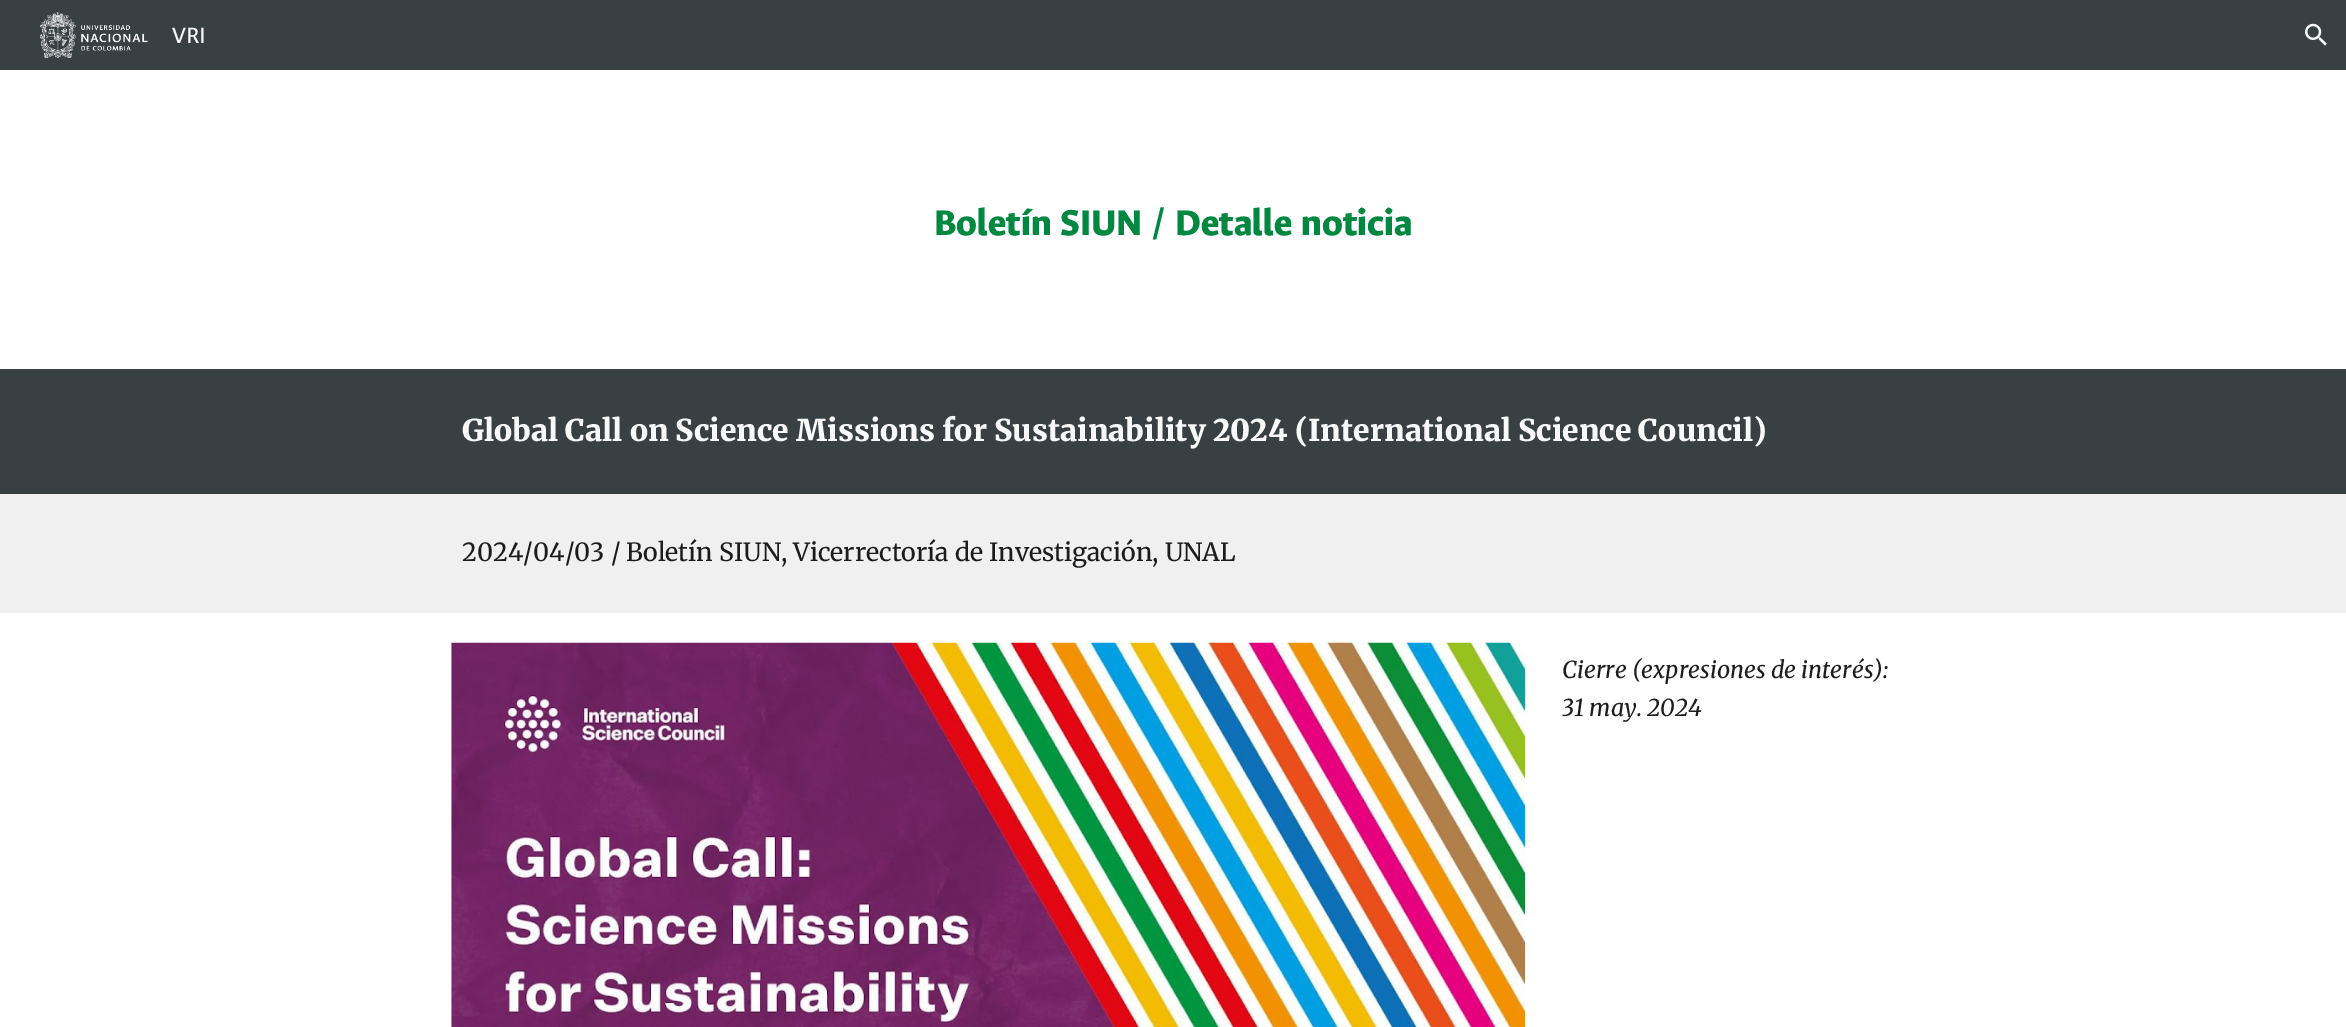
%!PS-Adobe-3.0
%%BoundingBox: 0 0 2346 1027
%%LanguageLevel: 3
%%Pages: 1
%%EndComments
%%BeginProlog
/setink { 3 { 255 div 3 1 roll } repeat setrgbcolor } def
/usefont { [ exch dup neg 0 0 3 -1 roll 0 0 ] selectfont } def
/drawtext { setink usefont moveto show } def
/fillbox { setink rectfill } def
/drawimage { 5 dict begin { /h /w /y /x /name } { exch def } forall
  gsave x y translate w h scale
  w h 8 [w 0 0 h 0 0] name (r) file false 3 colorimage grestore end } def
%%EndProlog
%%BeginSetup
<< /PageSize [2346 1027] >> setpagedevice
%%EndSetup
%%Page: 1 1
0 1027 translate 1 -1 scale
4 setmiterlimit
0 0 2346 1027 255 255 255 fillbox
0 0 2346 70 56 64 68 fillbox
(assets/img1.rgb) 40 12 108 46 drawimage
(VRI) 172 43 /AncizarSans-Regular 25 249 249 249 drawtext
(assets/img2.rgb) 2305 23 22 23 drawimage
(Boletín SIUN / Detalle noticia) 934 235 /AncizarSans-ExtraBold 40 1 136 64 drawtext
0 369 2346 125 56 64 68 fillbox
(Global Call on Science Missions for Sustainability 2024 \(International Science Council\)) 462 441 /Merriweather-Black 30 249 249 249 drawtext
0 494 2346 119 240 240 240 fillbox
(2024/04/03 / Boletín SIUN, Vicerrectoría de Investigación, UNAL) 462 561 /Merriweather-Regular 25 28 28 28 drawtext
(assets/img3.rgb) 451 642 1074 385 drawimage
(Cierre \(expresiones de interés\):) 1562 678 /Merriweather-Italic 23.3 28 28 28 drawtext
(31 may. 2024) 1562 716 /Merriweather-Italic 23.3 28 28 28 drawtext
showpage
%%EOF
